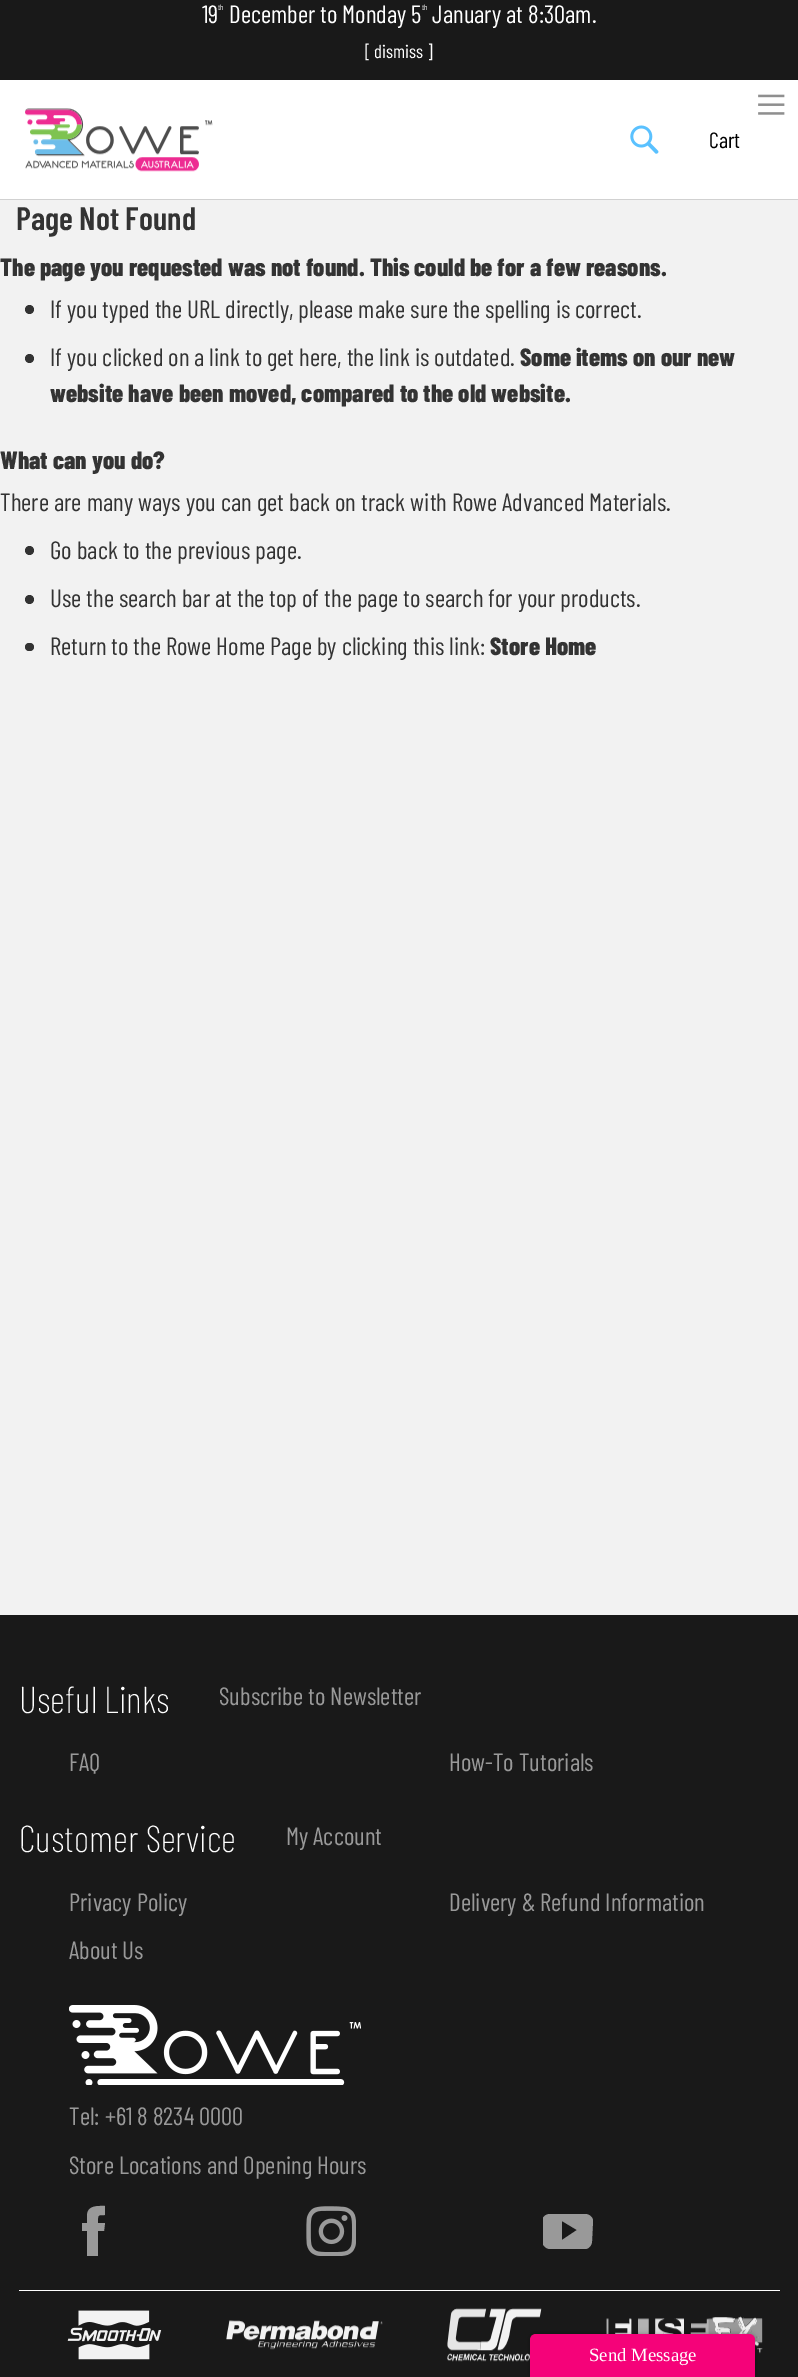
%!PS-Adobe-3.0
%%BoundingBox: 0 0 798 2377
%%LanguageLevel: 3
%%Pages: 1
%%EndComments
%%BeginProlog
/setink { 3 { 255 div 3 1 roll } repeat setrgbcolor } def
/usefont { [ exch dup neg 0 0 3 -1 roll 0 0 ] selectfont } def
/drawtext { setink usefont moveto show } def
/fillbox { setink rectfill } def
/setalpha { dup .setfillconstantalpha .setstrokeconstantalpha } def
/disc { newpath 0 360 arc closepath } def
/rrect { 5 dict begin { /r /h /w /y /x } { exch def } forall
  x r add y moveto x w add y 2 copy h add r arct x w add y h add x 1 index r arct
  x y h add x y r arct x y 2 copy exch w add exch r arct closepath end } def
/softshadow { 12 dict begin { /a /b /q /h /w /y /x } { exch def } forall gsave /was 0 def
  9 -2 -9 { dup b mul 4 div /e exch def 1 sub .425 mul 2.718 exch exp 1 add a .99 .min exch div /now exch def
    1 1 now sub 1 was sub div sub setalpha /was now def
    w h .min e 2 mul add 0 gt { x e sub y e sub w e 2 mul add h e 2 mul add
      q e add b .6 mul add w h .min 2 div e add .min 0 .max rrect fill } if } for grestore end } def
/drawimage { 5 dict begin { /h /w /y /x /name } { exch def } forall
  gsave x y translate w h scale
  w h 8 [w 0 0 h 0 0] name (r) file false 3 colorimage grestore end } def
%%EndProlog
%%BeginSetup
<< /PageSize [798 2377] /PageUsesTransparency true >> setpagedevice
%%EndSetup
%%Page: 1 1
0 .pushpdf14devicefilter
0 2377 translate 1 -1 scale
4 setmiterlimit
0 0 798 2377 242 242 242 fillbox
0 0 798 80 25 25 25 fillbox
(19) 202 23 /BarlowCondensed-Regular 25 255 255 255 drawtext
(th) 218 10 /BarlowCondensed-Regular 8 255 255 255 drawtext
(December to Monday 5) 229 23 /BarlowCondensed-Regular 25 255 255 255 drawtext
(th) 422 10 /BarlowCondensed-Regular 8 255 255 255 drawtext
(January at 8:30am.) 432 23 /BarlowCondensed-Regular 25 255 255 255 drawtext
([ dismiss ]) 365 58 /BarlowCondensed-Regular 18.75 255 255 255 drawtext
0 80 798 119 255 255 255 fillbox
0 199 798 1 209 209 209 fillbox
(assets/img1.rgb) 758 94 27 21 drawimage
(assets/img2.rgb) 25 108 188 64 drawimage
(assets/img3.rgb) 630 125 29 29 drawimage
(Cart) 709 148 /BarlowCondensed-Regular 22 0 0 0 drawtext
(Page Not Found) 16 230 /BarlowCondensed-SemiBold 32.5 51 51 51 drawtext
(The page you requested was not found. This could be for a few reasons.) 0 276 /BarlowCondensed-ExtraBold 25 51 51 51 drawtext
29.5 309.5 4.5 disc fill
(If you typed the URL directly, please make sure the spelling is correct.) 50 318 /BarlowCondensed-Regular 25 51 51 51 drawtext
29.5 358.5 4.5 disc fill
(If you clicked on a link to get here, the link is outdated.) 50 366 /BarlowCondensed-Regular 25 51 51 51 drawtext
(Some items on our new) 520 366 /BarlowCondensed-ExtraBold 25 51 51 51 drawtext
(website have been moved, compared to the old website.) 50 402 /BarlowCondensed-ExtraBold 25 51 51 51 drawtext
(What can you do?) 0 469 /BarlowCondensed-ExtraBold 25 51 51 51 drawtext
(There are many ways you can get back on track with Rowe Advanced Materials.) 0 511 /BarlowCondensed-Regular 25 51 51 51 drawtext
29.5 550.5 4.5 disc fill
(Go back to the previous page.) 50 559 /BarlowCondensed-Regular 25 51 51 51 drawtext
29.5 599.5 4.5 disc fill
(Use the search bar at the top of the page to search for your products.) 50 607 /BarlowCondensed-Regular 25 51 51 51 drawtext
25 643 9 8 4 rrect fill
(Return to the Rowe Home Page by clicking this link:) 50 655 /BarlowCondensed-Regular 25 51 51 51 drawtext
(Store Home) 490 655 /BarlowCondensed-ExtraBold 25 51 51 51 drawtext
0 1615 798 762 25 25 25 fillbox
(Useful Links) 19 1713 /BarlowCondensed-ExtraLight 37.5 255 255 255 drawtext
(Subscribe to Newsletter) 219 1705 /BarlowCondensed-Regular 25 153 153 153 drawtext
(FAQ) 69 1771 /BarlowCondensed-Regular 25 153 153 153 drawtext
(How-To Tutorials) 449 1771 /BarlowCondensed-Regular 25 153 153 153 drawtext
(Customer Service) 19 1852 /BarlowCondensed-ExtraLight 37.5 255 255 255 drawtext
(My Account) 286 1845 /BarlowCondensed-Regular 25 153 153 153 drawtext
(Privacy Policy) 69 1911 /BarlowCondensed-Regular 25 153 153 153 drawtext
(Delivery & Refund Information) 449 1911 /BarlowCondensed-Regular 25 153 153 153 drawtext
(About Us) 69 1959 /BarlowCondensed-Regular 25 153 153 153 drawtext
(assets/img4.rgb) 69 2005 292 80 drawimage
(Tel: +61 8 8234 0000) 69 2125 /BarlowCondensed-Regular 25 153 153 153 drawtext
(Store Locations and Opening Hours) 69 2174 /BarlowCondensed-Regular 25 153 153 153 drawtext
87 2216 moveto 87 2223 lineto 82 2223 lineto 82 2231 lineto 87 2231 lineto 87 2256 lineto 98 2256 lineto 98 2231 lineto 104 2231 lineto 105 2223 lineto 98 2223 lineto 98 2215 97 2215 105 2215 curveto 105 2206 lineto 98 2206 87 2205 87 2216 curveto closepath fill
(assets/img5.rgb) 306 2206 50 50 drawimage
gsave
543 2206 50 50 rectclip
593 2221 moveto 593 2217 589 2214 585 2214 curveto 550 2214 lineto 546 2214 542 2217 542 2221 curveto 542 2241 lineto 542 2245 546 2249 550 2249 curveto 585 2249 lineto 589 2249 592 2245 592 2241 curveto closepath 562 2240 moveto 562 2221 lineto 577 2230 lineto closepath fill
grestore
19 2290 761 1 255 255 255 fillbox
(assets/img6.rgb) 67 2310 95 50 drawimage
(assets/img7.rgb) 226 2320 157 30 drawimage
(assets/img8.rgb) 447 2308 95 54 drawimage
(assets/img9.rgb) 606 2316 157 38 drawimage
0 0 0 setink
530 2334 225 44 6 3 0.3 softshadow
245 2 121 setink
536 2334 moveto 749 2334 lineto 752.5 2334 755 2336.5 755 2340 curveto 755 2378 lineto 530 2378 lineto 530 2340 lineto 530 2336.5 532.5 2334 536 2334 curveto closepath fill
(Send Message) 589 2361 /LiberationSerif-Regular 18.75 255 255 255 drawtext
.poppdf14devicefilter showpage
%%EOF
